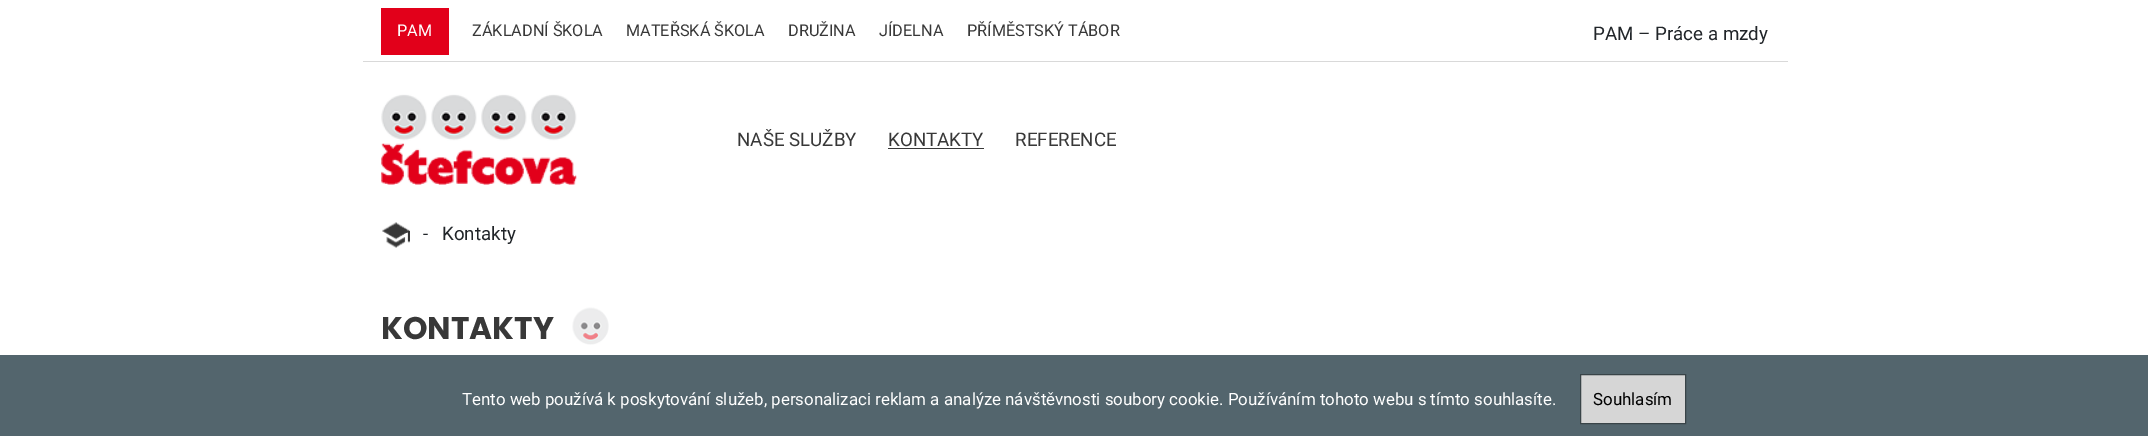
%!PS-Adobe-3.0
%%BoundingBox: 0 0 2148 436
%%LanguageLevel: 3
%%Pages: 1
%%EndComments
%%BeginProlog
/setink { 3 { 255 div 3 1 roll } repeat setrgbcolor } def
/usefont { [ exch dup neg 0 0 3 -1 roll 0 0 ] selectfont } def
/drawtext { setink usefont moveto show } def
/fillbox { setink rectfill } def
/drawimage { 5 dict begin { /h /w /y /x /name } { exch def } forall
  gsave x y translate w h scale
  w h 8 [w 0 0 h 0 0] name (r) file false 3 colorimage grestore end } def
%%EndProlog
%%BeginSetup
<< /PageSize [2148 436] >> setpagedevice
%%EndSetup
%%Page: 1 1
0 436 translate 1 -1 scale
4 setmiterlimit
0 0 2148 436 255 255 255 fillbox
363 61 1425 1 217 217 217 fillbox
381 8 68 47 226 0 26 fillbox
(PAM) 397 36 /Roboto-Regular 16.25 255 255 255 drawtext
(ZÁKLADNÍ ŠKOLA) 472 36 /Roboto-Regular 16.25 56 56 56 drawtext
(MATEŘSKÁ ŠKOLA) 626 36 /Roboto-Regular 16.25 56 56 56 drawtext
(DRUŽINA) 788 36 /Roboto-Regular 16.25 56 56 56 drawtext
(JÍDELNA) 879 36 /Roboto-Regular 16.25 56 56 56 drawtext
(PŘÍMĚSTSKÝ TÁBOR) 967 36 /Roboto-Regular 16.25 56 56 56 drawtext
(PAM – Práce a mzdy) 1593 40 /Roboto-Regular 18.75 33 37 41 drawtext
(assets/img1.rgb) 381 94 196 91 drawimage
(NAŠE SLUŽBY) 737 146 /Roboto-Regular 18.75 56 56 56 drawtext
(KONTAKTY) 888 146 /Roboto-Regular 18.75 56 56 56 drawtext
888 148 96 1 56 56 56 fillbox
(REFERENCE) 1015 146 /Roboto-Regular 18.75 56 56 56 drawtext
(assets/img2.rgb) 382 222 28 26 drawimage
(-) 423 240 /Roboto-Regular 18.75 33 37 41 drawtext
(Kontakty) 442 240 /Roboto-Regular 18.75 33 37 41 drawtext
(KONTAKTY) 381 339 /Poppins-Bold 31.25 56 56 56 drawtext
(assets/img3.rgb) 572 307 37 38 drawimage
0 355 2148 81 83 101 109 fillbox
(Tento web používá k poskytování služeb, personalizaci reklam a analýze návštěvnosti soubory cookie. Používáním tohoto webu s tímto souhlasíte.) 462 405 /Roboto-Regular 16.88 255 255 255 drawtext
214 214 214 setink
1580.5 374.5 moveto 1685.5 374.5 lineto 1685.5 423.5 lineto 1580.5 423.5 lineto closepath gsave fill grestore
57 68 72 setink
stroke
(Souhlasím) 1593 405 /Roboto-Regular 16.88 0 0 0 drawtext
showpage
%%EOF
